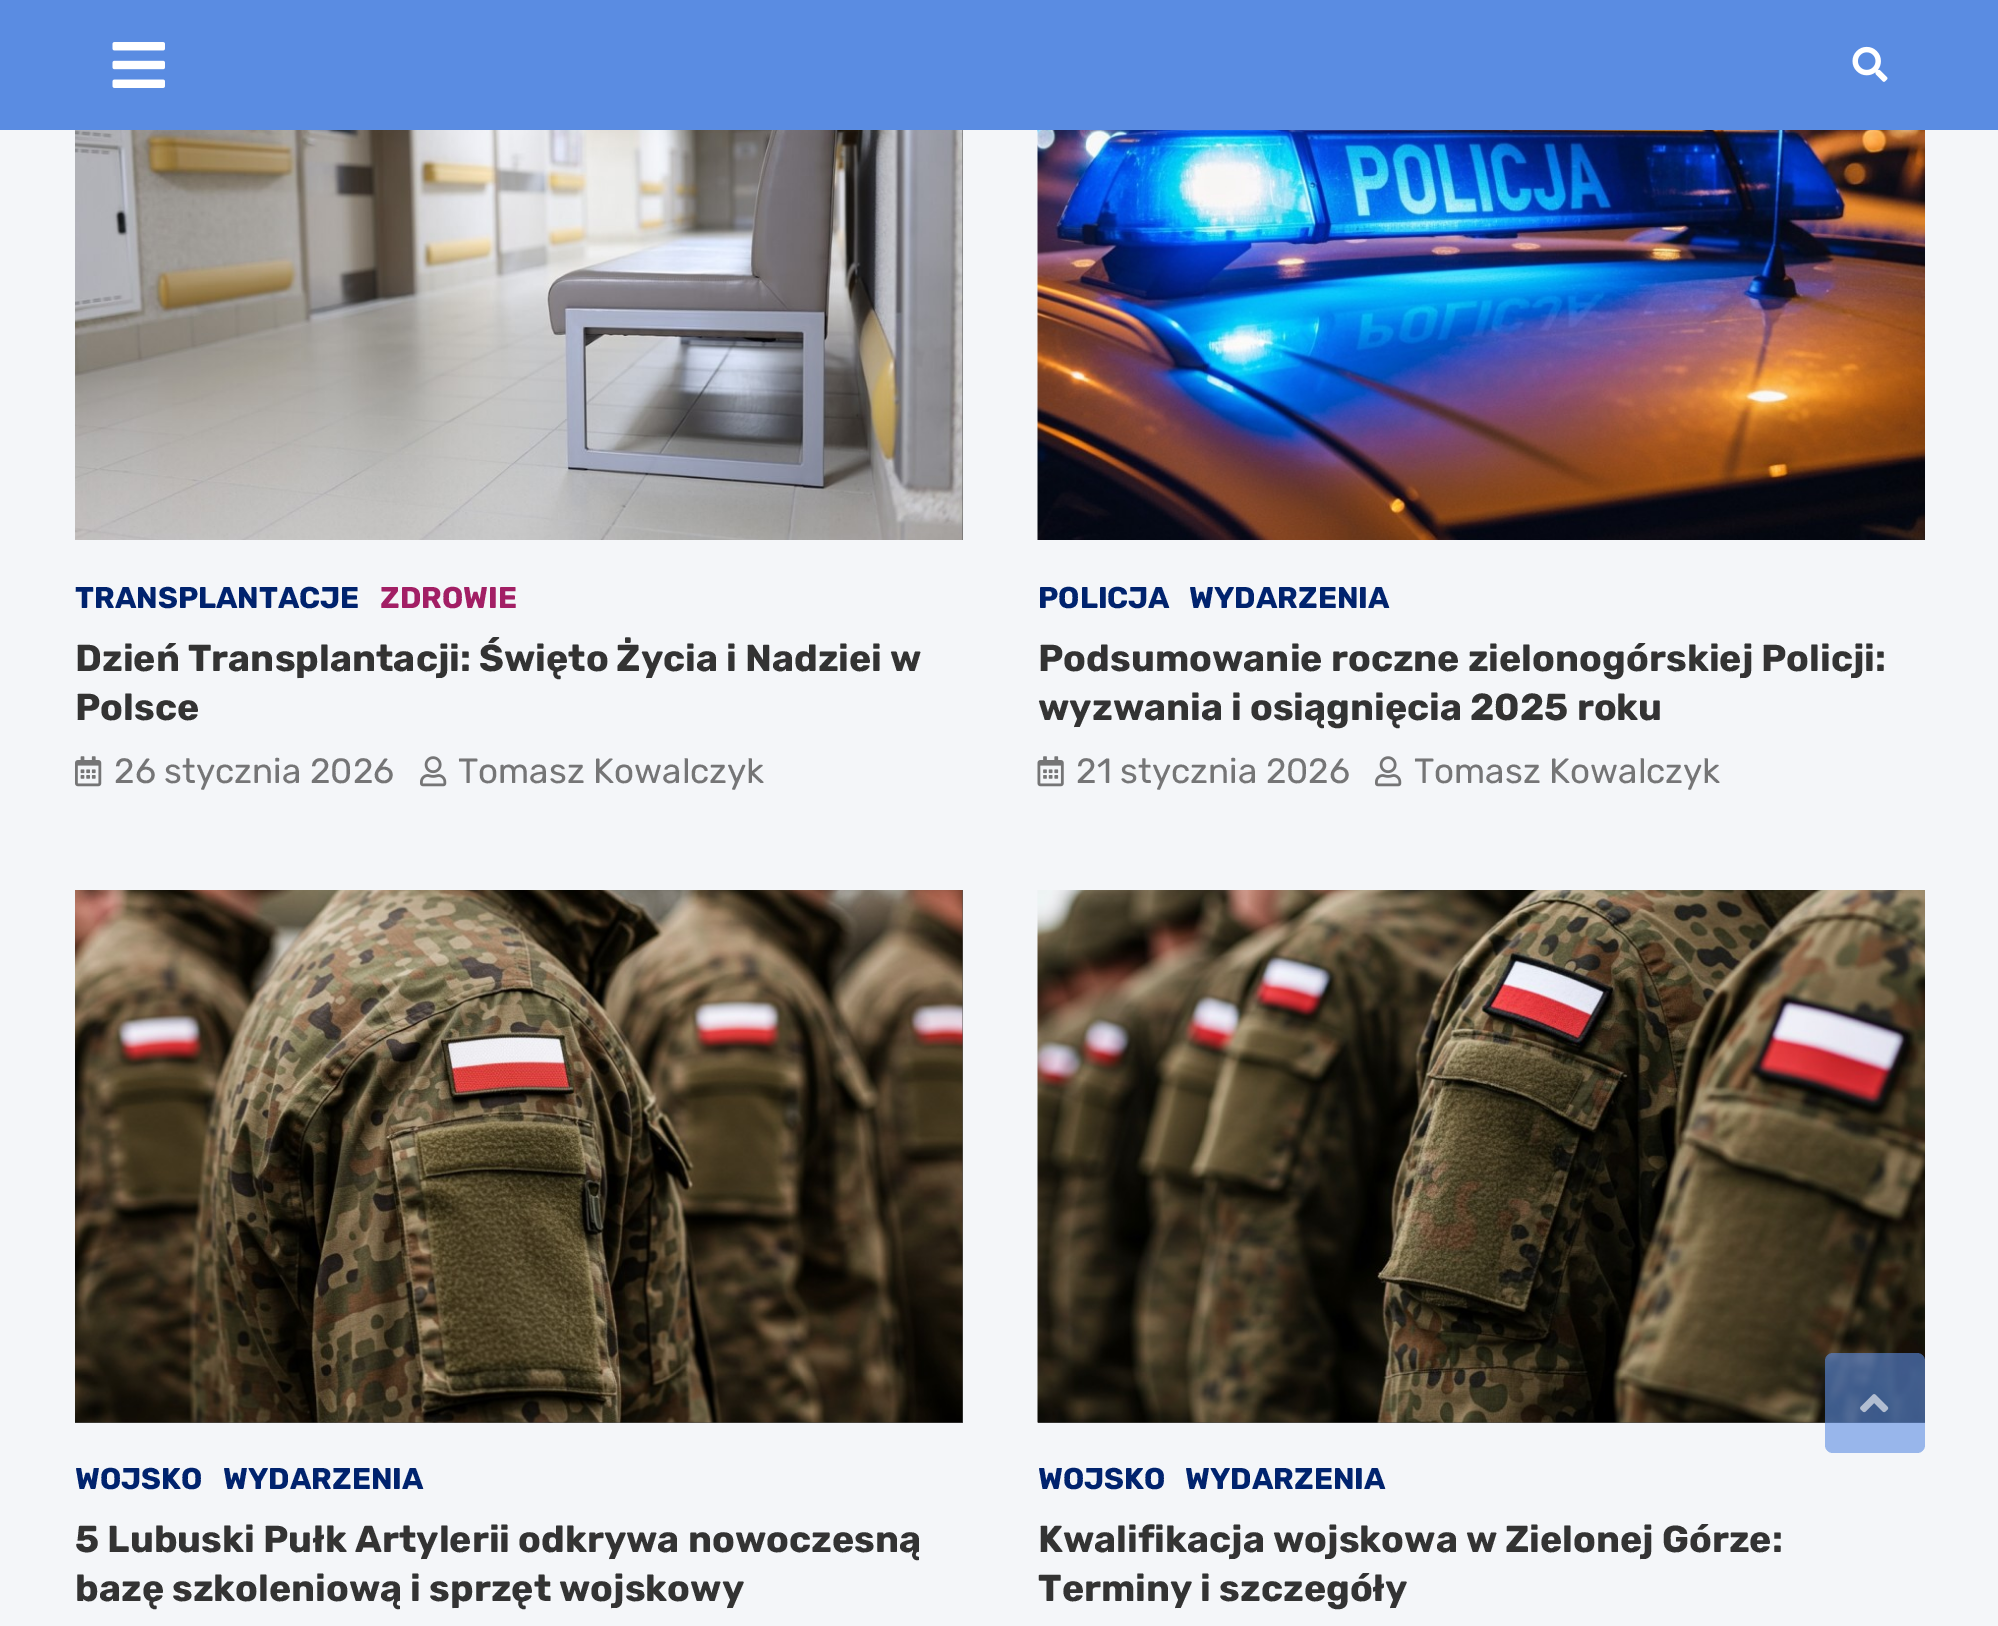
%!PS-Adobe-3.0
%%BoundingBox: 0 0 1998 1626
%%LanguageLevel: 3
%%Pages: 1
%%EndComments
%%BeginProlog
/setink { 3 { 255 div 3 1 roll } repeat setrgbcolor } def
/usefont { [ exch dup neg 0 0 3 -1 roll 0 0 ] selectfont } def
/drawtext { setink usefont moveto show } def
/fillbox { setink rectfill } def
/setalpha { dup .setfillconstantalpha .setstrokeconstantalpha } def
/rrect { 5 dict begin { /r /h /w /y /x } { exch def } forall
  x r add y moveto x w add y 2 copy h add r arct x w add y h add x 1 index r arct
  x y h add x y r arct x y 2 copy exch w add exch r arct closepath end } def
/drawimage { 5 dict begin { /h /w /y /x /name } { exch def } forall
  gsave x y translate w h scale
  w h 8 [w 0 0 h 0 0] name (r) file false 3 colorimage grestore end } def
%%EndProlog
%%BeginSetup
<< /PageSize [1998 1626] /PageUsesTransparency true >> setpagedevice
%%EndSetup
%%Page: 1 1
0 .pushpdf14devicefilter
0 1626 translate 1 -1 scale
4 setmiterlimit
0 0 1998 1626 244 246 249 fillbox
0 0 1998 130 90 140 226 fillbox
(assets/img1.rgb) 112 42 53 46 drawimage
(assets/img2.rgb) 1852 46 36 36 drawimage
962 130 1 410 85 85 85 fillbox
(assets/img3.rgb) 75 130 888 410 drawimage
(TRANSPLANTACJE) 75 608 /Rubik-Bold 30 0 35 110 drawtext
(ZDROWIE) 380 608 /Rubik-Bold 30 162 31 101 drawtext
(Dzień Transplantacji: Święto Życia i Nadziei w) 75 671 /Rubik-Bold 37.5 51 51 51 drawtext
(Polsce) 75 720 /Rubik-Bold 37.5 51 51 51 drawtext
(assets/img4.rgb) 75 756 27 31 drawimage
(26 stycznia 2026) 114 783 /Rubik-Regular 35 117 117 118 drawtext
(assets/img5.rgb) 420 756 27 31 drawimage
(Tomasz Kowalczyk) 458 783 /Rubik-Regular 35 117 117 118 drawtext
(assets/img6.rgb) 1037 130 888 410 drawimage
(POLICJA) 1038 608 /Rubik-Bold 30 0 35 110 drawtext
(WYDARZENIA) 1189 608 /Rubik-Bold 30 0 35 110 drawtext
(Podsumowanie roczne zielonogórskiej Policji:) 1038 671 /Rubik-Bold 37.5 51 51 51 drawtext
(wyzwania i osiągnięcia 2025 roku) 1038 720 /Rubik-Bold 37.5 51 51 51 drawtext
(assets/img7.rgb) 1037 756 27 31 drawimage
(21 stycznia 2026) 1076 783 /Rubik-Regular 35 117 117 118 drawtext
(assets/img5.rgb) 1375 756 27 31 drawimage
(Tomasz Kowalczyk) 1414 783 /Rubik-Regular 35 117 117 118 drawtext
75 890 888 533 85 85 85 fillbox
(assets/img8.rgb) 75 890 888 533 drawimage
(WOJSKO) 75 1489 /Rubik-Bold 30 0 35 110 drawtext
(WYDARZENIA) 223 1489 /Rubik-Bold 30 0 35 110 drawtext
(5 Lubuski Pułk Artylerii odkrywa nowoczesną) 75 1552 /Rubik-Bold 37.5 51 51 51 drawtext
(bazę szkoleniową i sprzęt wojskowy) 75 1601 /Rubik-Bold 37.5 51 51 51 drawtext
1038 1422 887 1 85 85 85 fillbox
(assets/img9.rgb) 1037 890 888 533 drawimage
(WOJSKO) 1038 1489 /Rubik-Bold 30 0 35 110 drawtext
(WYDARZENIA) 1185 1489 /Rubik-Bold 30 0 35 110 drawtext
(Kwalifikacja wojskowa w Zielonej Górze:) 1038 1552 /Rubik-Bold 37.5 51 51 51 drawtext
(Terminy i szczegóły) 1038 1601 /Rubik-Bold 37.5 51 51 51 drawtext
0.6 setalpha
90 140 226 setink
1825 1353 100 100 8 rrect fill
1 setalpha
(assets/img10.rgb) 1860 1394 29 19 drawimage
.poppdf14devicefilter showpage
%%EOF
